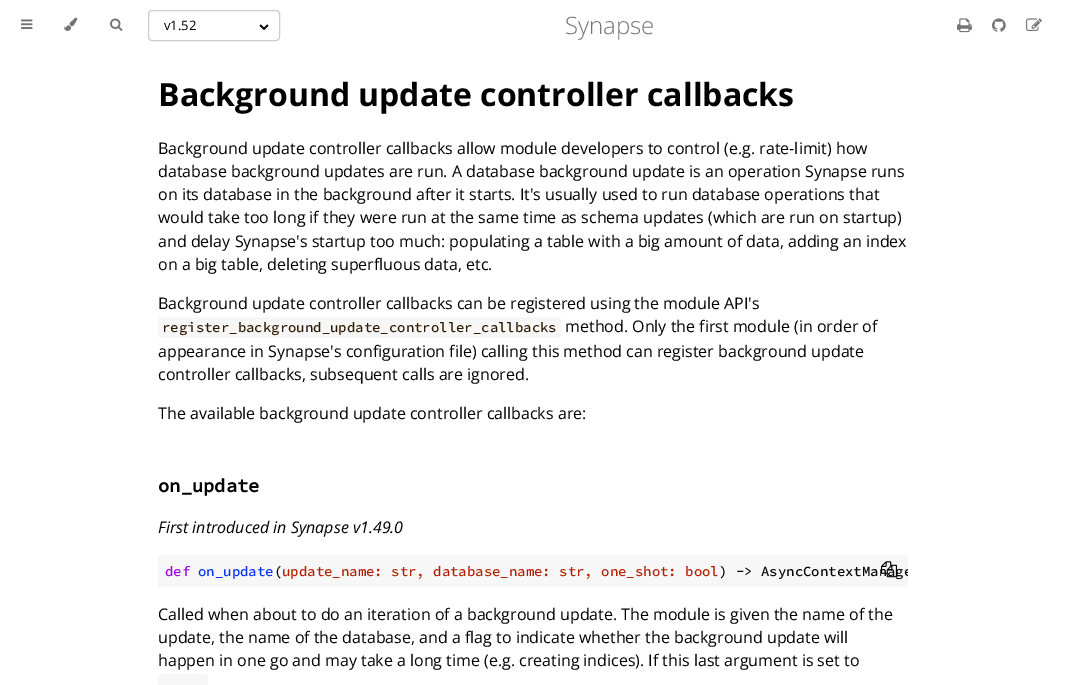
%!PS-Adobe-3.0
%%BoundingBox: 0 0 1065 685
%%LanguageLevel: 3
%%Pages: 1
%%EndComments
%%BeginProlog
/setink { 3 { 255 div 3 1 roll } repeat setrgbcolor } def
/usefont { [ exch dup neg 0 0 3 -1 roll 0 0 ] selectfont } def
/drawtext { setink usefont moveto show } def
/fillbox { setink rectfill } def
/rrect { 5 dict begin { /r /h /w /y /x } { exch def } forall
  x r add y moveto x w add y 2 copy h add r arct x w add y h add x 1 index r arct
  x y h add x y r arct x y 2 copy exch w add exch r arct closepath end } def
/drawimage { 5 dict begin { /h /w /y /x /name } { exch def } forall
  gsave x y translate w h scale
  w h 8 [w 0 0 h 0 0] name (r) file false 3 colorimage grestore end } def
%%EndProlog
%%BeginSetup
<< /PageSize [1065 685] >> setpagedevice
%%EndSetup
%%Page: 1 1
0 685 translate 1 -1 scale
4 setmiterlimit
0 0 1065 685 255 255 255 fillbox
(assets/img1.rgb) 21 19 12 10 drawimage
(assets/img2.rgb) 64 17 14 14 drawimage
(assets/img3.rgb) 110 18 13 13 drawimage
204 204 204 setink
148.5 10.5 131 30 3.5 rrect stroke
(v1.52) 164 30 /OpenSans-Regular 13 0 0 0 drawtext
(assets/img4.rgb) 259 24 10 7 drawimage
(Synapse) 565 34 /OpenSans-Light 24 116 116 116 drawtext
(assets/img5.rgb) 957 18 15 15 drawimage
(assets/img6.rgb) 992 18 14 14 drawimage
(assets/img7.rgb) 1026 18 16 13 drawimage
(Background update controller callbacks) 158 106 /OpenSans-Bold 32 0 0 0 drawtext
(Background update controller callbacks allow module developers to control \(e.g. rate-limit\) how) 158 154 /OpenSans-Regular 16 0 0 0 drawtext
(database background updates are run. A database background update is an operation Synapse runs) 158 177 /OpenSans-Regular 16 0 0 0 drawtext
(on its database in the background after it starts. It's usually used to run database operations that) 158 200 /OpenSans-Regular 16 0 0 0 drawtext
(would take too long if they were run at the same time as schema updates \(which are run on startup\)) 158 223 /OpenSans-Regular 16 0 0 0 drawtext
(and delay Synapse's startup too much: populating a table with a big amount of data, adding an index) 158 247 /OpenSans-Regular 16 0 0 0 drawtext
(on a big table, deleting superfluous data, etc.) 158 270 /OpenSans-Regular 16 0 0 0 drawtext
(Background update controller callbacks can be registered using the module API's) 158 309 /OpenSans-Regular 16 0 0 0 drawtext
246 247 246 setink
158 317 403 21 3 rrect fill
(register_background_update_controller_callbacks) 162 332 /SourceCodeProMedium-Medium 14 48 25 0 drawtext
(method. Only the first module \(in order of) 565 332 /OpenSans-Regular 16 0 0 0 drawtext
(appearance in Synapse's configuration file\) calling this method can register background update) 158 357 /OpenSans-Regular 16 0 0 0 drawtext
(controller callbacks, subsequent calls are ignored.) 158 380 /OpenSans-Regular 16 0 0 0 drawtext
(The available background update controller callbacks are:) 158 419 /OpenSans-Regular 16 0 0 0 drawtext
(on_update) 158 492 /SourceCodeProMedium-Bold 18.75 0 0 0 drawtext
(First introduced in Synapse v1.49.0) 158 533 /OpenSans-Italic 16 0 0 0 drawtext
158 555 750 32 246 247 246 fillbox
gsave
158 555 750 32 rectclip
(\) -> AsyncContextManage) 719 576 /SourceCodeProMedium-Medium 14 0 0 0 drawtext
grestore
(assets/img8.rgb) 881 561 16 17 drawimage
(def) 165 576 /SourceCodeProMedium-Medium 14 157 0 236 drawtext
(on_update) 198 576 /SourceCodeProMedium-Medium 14 0 48 242 drawtext
(\() 274 576 /SourceCodeProMedium-Medium 14 0 0 0 drawtext
(update_name: str, database_name: str, one_shot: bool) 282 576 /SourceCodeProMedium-Medium 14 178 30 0 drawtext
(Called when about to do an iteration of a background update. The module is given the name of the) 158 620 /OpenSans-Regular 16 0 0 0 drawtext
(update, the name of the database, and a flag to indicate whether the background update will) 158 643 /OpenSans-Regular 16 0 0 0 drawtext
(happen in one go and may take a long time \(e.g. creating indices\). If this last argument is set to) 158 666 /OpenSans-Regular 16 0 0 0 drawtext
246 247 246 setink
158 674 50 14 3 rrect fill
showpage
%%EOF
